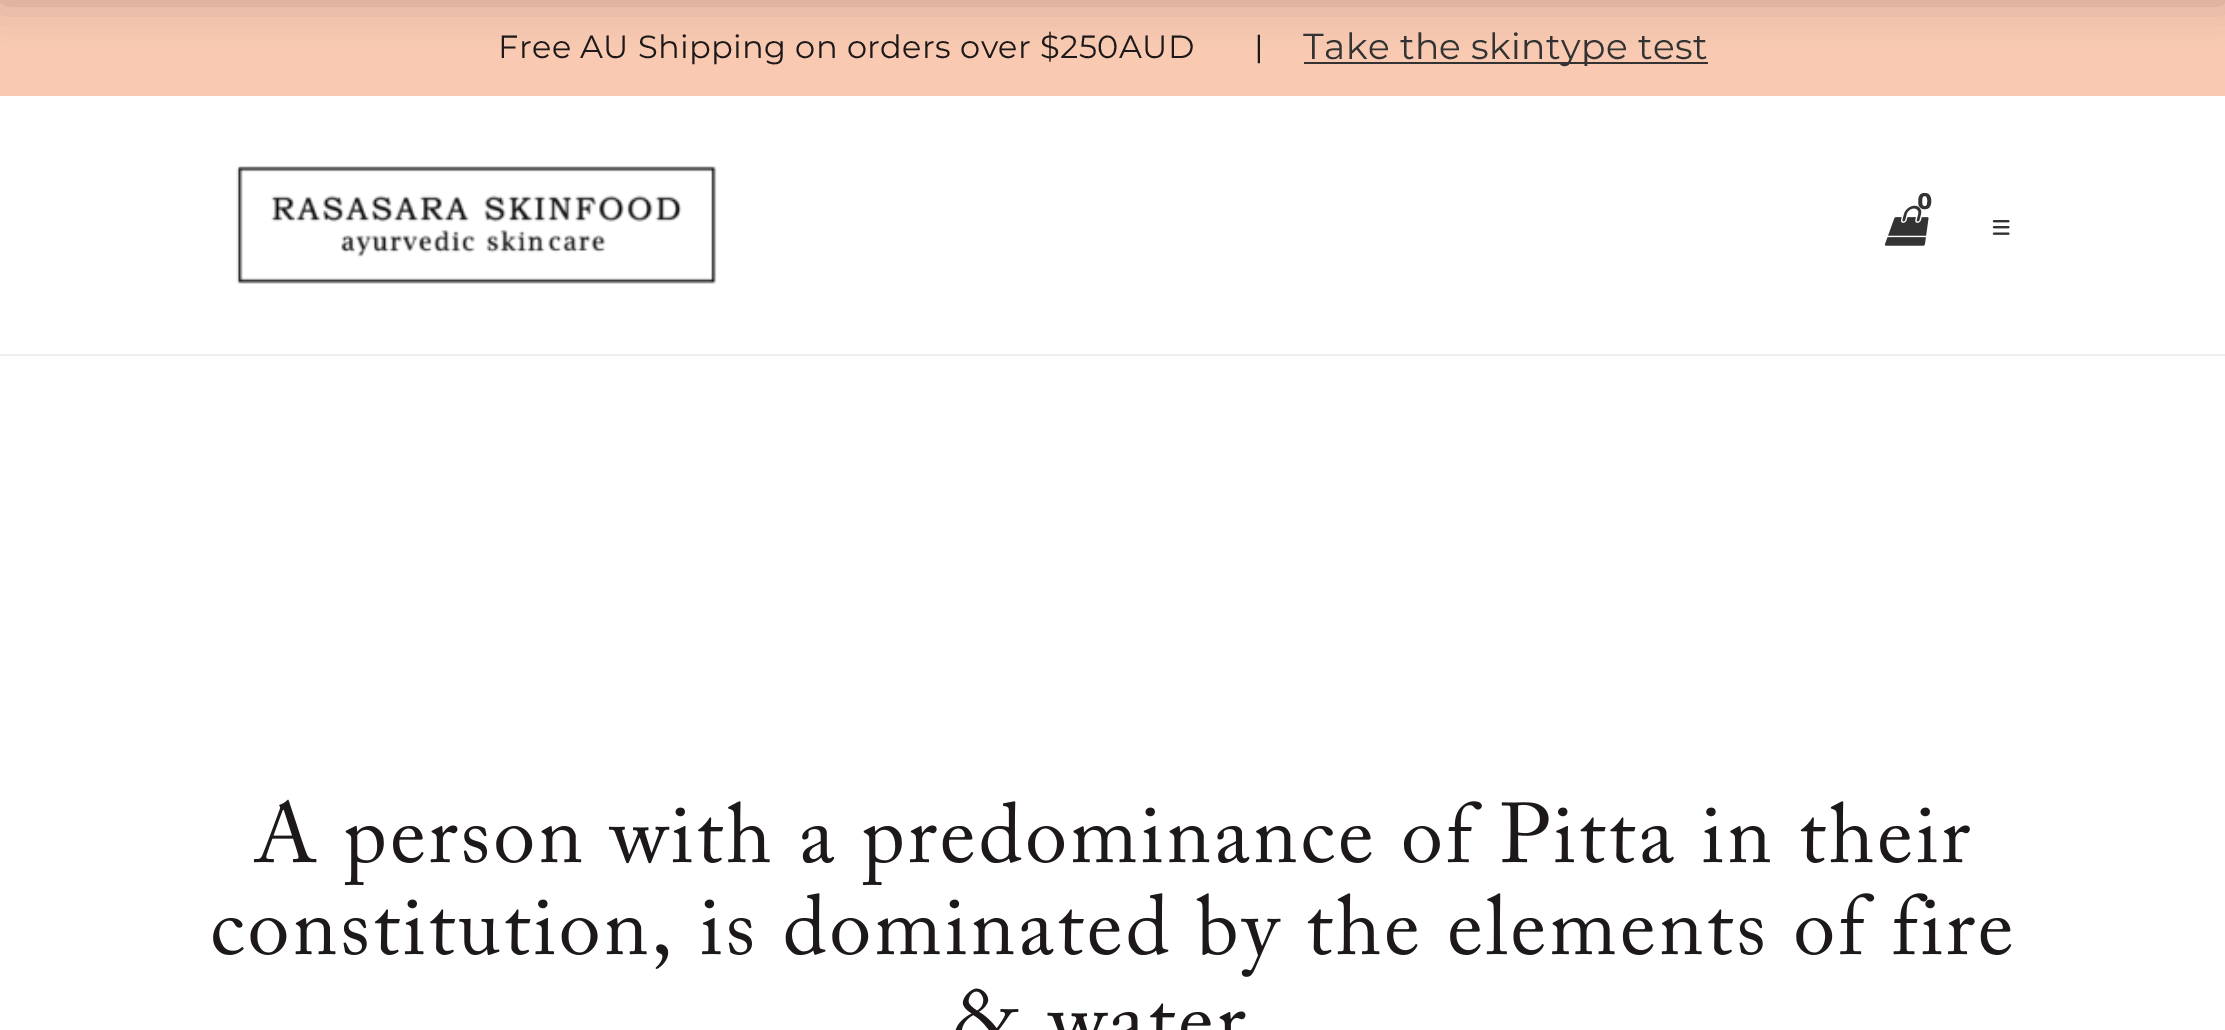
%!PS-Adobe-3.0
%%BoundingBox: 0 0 2225 1030
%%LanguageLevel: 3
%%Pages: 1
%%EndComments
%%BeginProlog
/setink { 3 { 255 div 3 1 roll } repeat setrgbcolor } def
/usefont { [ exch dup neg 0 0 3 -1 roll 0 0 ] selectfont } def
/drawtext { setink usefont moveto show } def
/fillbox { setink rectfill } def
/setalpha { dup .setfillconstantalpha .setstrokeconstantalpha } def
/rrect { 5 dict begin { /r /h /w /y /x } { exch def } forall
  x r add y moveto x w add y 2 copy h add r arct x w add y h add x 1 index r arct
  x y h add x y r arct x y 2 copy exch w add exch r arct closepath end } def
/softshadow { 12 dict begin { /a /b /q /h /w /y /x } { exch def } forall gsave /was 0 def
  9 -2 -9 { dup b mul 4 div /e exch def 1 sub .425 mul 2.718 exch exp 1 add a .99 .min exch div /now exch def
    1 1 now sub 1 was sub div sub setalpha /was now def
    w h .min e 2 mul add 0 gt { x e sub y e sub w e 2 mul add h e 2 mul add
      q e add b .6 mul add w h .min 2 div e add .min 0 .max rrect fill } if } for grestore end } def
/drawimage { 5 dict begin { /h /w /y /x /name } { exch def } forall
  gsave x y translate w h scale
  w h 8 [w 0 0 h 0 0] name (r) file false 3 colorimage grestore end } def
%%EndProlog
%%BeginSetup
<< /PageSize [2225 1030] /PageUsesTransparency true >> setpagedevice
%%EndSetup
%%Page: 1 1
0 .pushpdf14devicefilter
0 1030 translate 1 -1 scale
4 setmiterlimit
0 0 2225 1030 255 255 255 fillbox
0 0 2225 96 249 202 177 fillbox
/Montserrat-Thin 32 usefont
29 25 26 setink
498 58 moveto 0.4 0 (Free AU Shipping on orders over $250AUD) ashow
/WorkSans-Regular 32 usefont
1255 58 moveto 0.4 0 (|) ashow
1304 62 404 2 51 51 51 fillbox
/Montserrat-Thin 36 usefont
1303 59 moveto 0.4 0 (Take the skintype test) ashow
0 0 0 setink
0 -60 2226 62 0 20 0.2 softshadow
0 354 2225 2 239 239 239 fillbox
(assets/img1.rgb) 236 166 481 118 drawimage
(assets/img2.rgb) 1884 205 45 41 drawimage
(0) 1917 209 /WorkSans-Bold 24 51 51 51 drawtext
(assets/img3.rgb) 1992 220 18 15 drawimage
(assets/img4.rgb) 253 799 1717 87 drawimage
(assets/img5.rgb) 213 893 1799 84 drawimage
(assets/img6.rgb) 955 988 291 42 drawimage
.poppdf14devicefilter showpage
%%EOF
